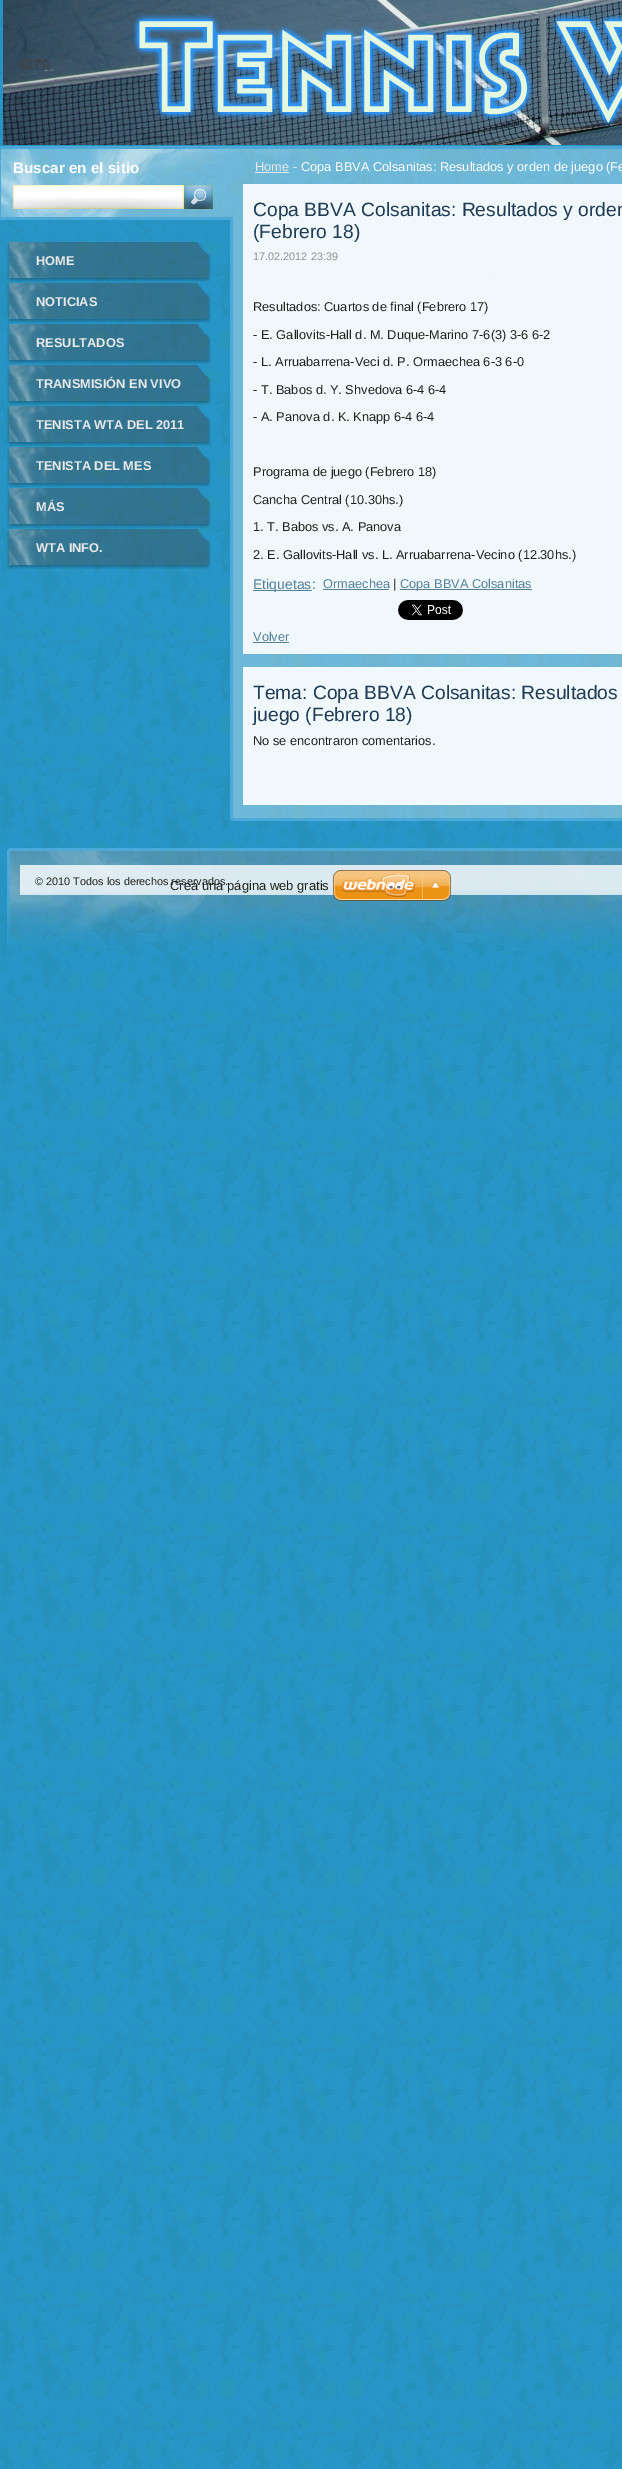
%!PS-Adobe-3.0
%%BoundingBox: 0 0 622 2469
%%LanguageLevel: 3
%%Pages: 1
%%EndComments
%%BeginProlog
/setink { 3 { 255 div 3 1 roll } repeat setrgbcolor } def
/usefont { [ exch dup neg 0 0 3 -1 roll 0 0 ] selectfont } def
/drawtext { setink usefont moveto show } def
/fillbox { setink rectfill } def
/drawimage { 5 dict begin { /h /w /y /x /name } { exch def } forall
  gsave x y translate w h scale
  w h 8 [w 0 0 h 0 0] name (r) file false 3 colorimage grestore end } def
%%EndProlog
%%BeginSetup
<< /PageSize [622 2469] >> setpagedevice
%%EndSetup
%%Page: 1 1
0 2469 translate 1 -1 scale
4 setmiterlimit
0 0 622 2469 255 255 255 fillbox
(assets/img1.rgb) 0 951 622 1518 drawimage
(assets/img2.rgb) 0 0 622 951 drawimage
(assets/img3.rgb) 3 0 619 145 drawimage
(assets/img4.rgb) 20 59 35 16 drawimage
(assets/img5.rgb) 0 146 230 74 drawimage
(Buscar en el sitio) 13 173 /LiberationSans-Bold 15.25 255 255 255 drawtext
(assets/img6.rgb) 13 185 171 24 drawimage
(assets/img7.rgb) 184 185 29 24 drawimage
(assets/img8.rgb) 230 220 392 598 drawimage
(assets/img9.rgb) 230 146 392 74 drawimage
(Home -) 255 171 /LiberationSans-Regular 12.8 233 233 233 drawtext
255 172 34 1 233 233 233 fillbox
(Copa BBVA Colsanitas: Resultados y orden de juego \(Fe) 301 171 /LiberationSans-Regular 12.8 255 255 255 drawtext
243 184 379 470 241 248 251 fillbox
(Copa BBVA Colsanitas: Resultados y orden) 253 216 /LiberationSans-Regular 19.25 31 59 85 drawtext
(\(Febrero 18\)) 253 238 /LiberationSans-Regular 19.25 31 59 85 drawtext
(17.02.2012 23:39) 253 260 /LiberationSans-Regular 10.9 145 145 146 drawtext
493 273 1 1 217 237 250 fillbox
(Resultados: Cuartos de final \(Febrero 17\)) 253 311 /LiberationSans-Regular 12.8 31 34 28 drawtext
(- E. Gallovits-Hall d. M. Duque-Marino 7-6\(3\) 3-6 6-2) 253 339 /LiberationSans-Regular 12.8 31 34 28 drawtext
(- L. Arruabarrena-Veci d. P. Ormaechea 6-3 6-0) 253 366 /LiberationSans-Regular 12.8 31 34 28 drawtext
(- T. Babos d. Y. Shvedova 6-4 6-4) 253 394 /LiberationSans-Regular 12.8 31 34 28 drawtext
(- A. Panova d. K. Knapp 6-4 6-4) 253 421 /LiberationSans-Regular 12.8 31 34 28 drawtext
(Programa de juego \(Febrero 18\)) 253 476 /LiberationSans-Regular 12.8 31 34 28 drawtext
(Cancha Central \(10.30hs.\)) 253 504 /LiberationSans-Regular 12.8 31 34 28 drawtext
(1. T. Babos vs. A. Panova) 253 531 /LiberationSans-Regular 12.8 31 34 28 drawtext
(2. E. Gallovits-Hall vs. L. Arruabarrena-Vecino \(12.30hs.\)) 253 559 /LiberationSans-Regular 12.8 31 34 28 drawtext
253 590 59 1 83 127 155 fillbox
(Etiquetas) 253 589 /LiberationSans-Regular 14 83 127 155 drawtext
(:) 312 589 /LiberationSans-Regular 14 26 107 148 drawtext
(Ormaechea) 323 588 /LiberationSans-Regular 12.8 83 127 155 drawtext
323 589 66 1 83 127 155 fillbox
(|) 393 588 /LiberationSans-Regular 12.8 31 34 28 drawtext
400 589 132 1 83 127 155 fillbox
(Copa BBVA Colsanitas) 400 588 /LiberationSans-Regular 12.8 83 127 155 drawtext
(assets/img10.rgb) 398 600 65 20 drawimage
(Volver) 253 641 /LiberationSans-Regular 12.8 83 127 155 drawtext
253 642 36 1 83 127 155 fillbox
243 667 379 138 241 248 251 fillbox
(Tema: Copa BBVA Colsanitas: Resultados) 253 699 /LiberationSans-Regular 19.25 31 59 85 drawtext
(juego \(Febrero 18\)) 253 721 /LiberationSans-Regular 19.25 31 59 85 drawtext
(No se encontraron comentarios.) 253 745 /LiberationSans-Regular 12.8 31 34 28 drawtext
(assets/img11.rgb) 230 818 392 3 drawimage
(assets/img12.rgb) 7 242 204 40 drawimage
(HOME) 36 265 /LiberationSans-Bold 12.8 233 233 233 drawtext
(assets/img13.rgb) 7 283 204 40 drawimage
(NOTICIAS) 36 306 /LiberationSans-Bold 12.8 233 233 233 drawtext
(assets/img14.rgb) 7 324 204 40 drawimage
(RESULTADOS) 36 347 /LiberationSans-Bold 12.8 233 233 233 drawtext
(assets/img15.rgb) 7 365 204 40 drawimage
(TRANSMISIÓN EN VIVO) 36 388 /LiberationSans-Bold 12.8 233 233 233 drawtext
(assets/img16.rgb) 7 406 204 40 drawimage
(TENISTA WTA DEL 2011) 36 429 /LiberationSans-Bold 12.8 233 233 233 drawtext
(assets/img17.rgb) 7 447 204 40 drawimage
(TENISTA DEL MES) 36 470 /LiberationSans-Bold 12.8 233 233 233 drawtext
(assets/img18.rgb) 7 488 204 40 drawimage
(MÁS) 36 511 /LiberationSans-Bold 12.8 233 233 233 drawtext
(assets/img19.rgb) 7 529 204 40 drawimage
(WTA INFO.) 36 552 /LiberationSans-Bold 12.8 233 233 233 drawtext
(assets/img20.rgb) 7 848 615 103 drawimage
(© 2010 Todos los derechos reservados.) 35 885 /LiberationSans-Regular 10.9 31 34 28 drawtext
(Crea una página web gratis) 170 890 /LiberationSans-Regular 13 31 34 28 drawtext
(assets/img21.rgb) 333 870 118 31 drawimage
showpage
%%EOF
